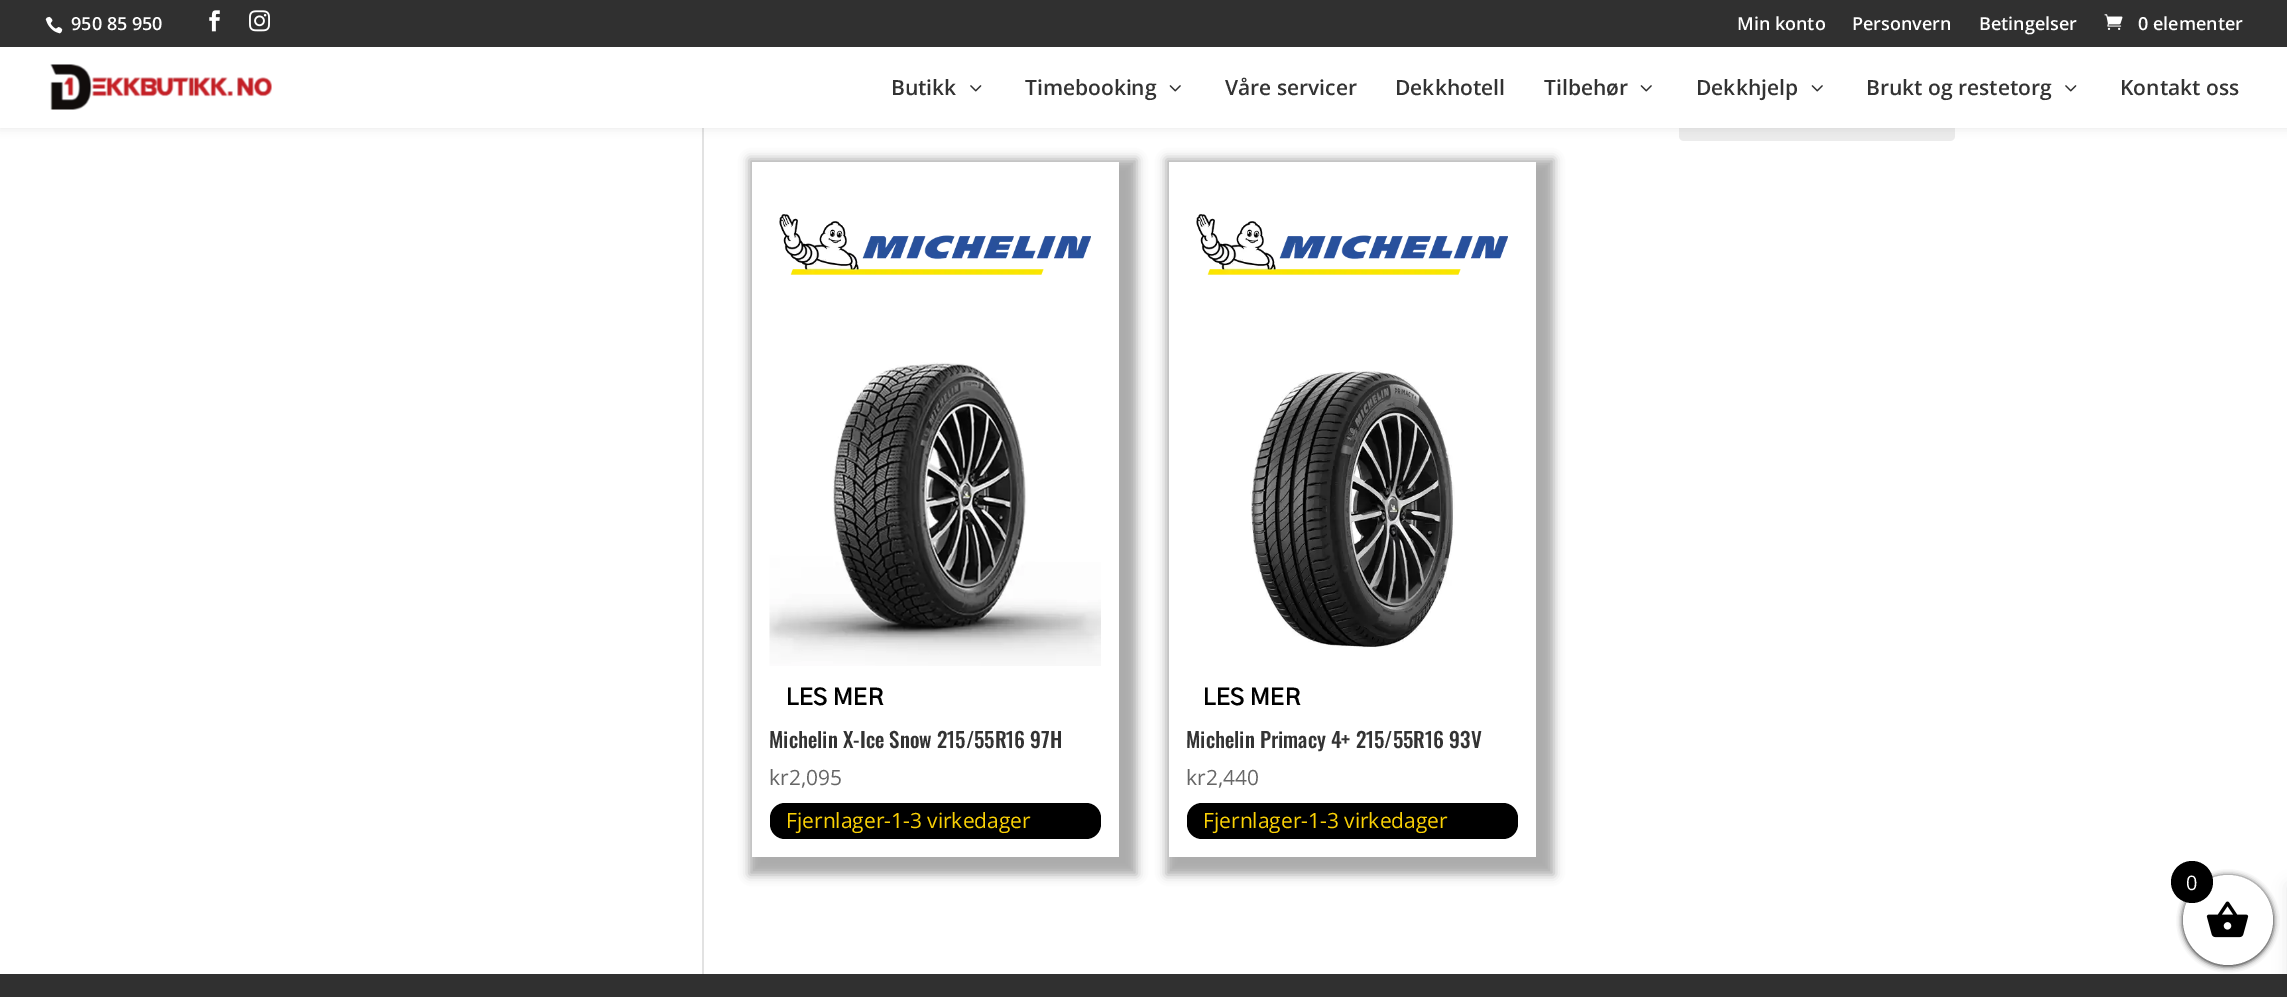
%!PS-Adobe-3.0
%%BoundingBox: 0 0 2287 997
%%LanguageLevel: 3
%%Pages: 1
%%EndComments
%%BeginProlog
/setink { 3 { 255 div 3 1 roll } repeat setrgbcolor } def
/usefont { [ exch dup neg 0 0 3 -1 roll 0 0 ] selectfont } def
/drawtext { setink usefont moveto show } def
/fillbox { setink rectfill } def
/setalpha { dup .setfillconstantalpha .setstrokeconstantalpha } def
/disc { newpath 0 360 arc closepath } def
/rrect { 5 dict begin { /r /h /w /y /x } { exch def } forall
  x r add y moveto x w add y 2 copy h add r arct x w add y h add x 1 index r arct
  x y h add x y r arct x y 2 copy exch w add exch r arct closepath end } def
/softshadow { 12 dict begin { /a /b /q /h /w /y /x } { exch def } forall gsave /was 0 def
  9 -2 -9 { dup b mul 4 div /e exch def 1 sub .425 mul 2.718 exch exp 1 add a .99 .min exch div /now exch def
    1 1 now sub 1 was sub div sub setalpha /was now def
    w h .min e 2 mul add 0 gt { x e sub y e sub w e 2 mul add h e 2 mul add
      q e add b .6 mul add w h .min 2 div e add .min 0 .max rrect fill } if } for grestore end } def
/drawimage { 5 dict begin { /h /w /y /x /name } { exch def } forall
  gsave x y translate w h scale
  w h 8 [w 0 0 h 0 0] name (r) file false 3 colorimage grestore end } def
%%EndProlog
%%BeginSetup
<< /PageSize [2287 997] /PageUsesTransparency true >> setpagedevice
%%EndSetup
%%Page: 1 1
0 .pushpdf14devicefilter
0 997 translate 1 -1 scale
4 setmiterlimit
0 0 2287 997 255 255 255 fillbox
702 128 2 846 226 226 226 fillbox
236 236 236 setink
1679 101 276 40 5 rrect fill
0 0 0 setink
0 47 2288 81 0 5 0.1 softshadow
0 0 2287 47 48 48 48 fillbox
(assets/img1.rgb) 45 16 18 18 drawimage
(950 85 950) 71 30 /OpenSans-SemiBold 18 255 255 255 drawtext
(assets/img2.rgb) 209 10 11 22 drawimage
(assets/img3.rgb) 249 10 21 22 drawimage
(Min konto) 1737 30 /OpenSans-SemiBold 18 255 255 255 drawtext
(Personvern) 1852 30 /OpenSans-SemiBold 18 255 255 255 drawtext
(Betingelser) 1979 30 /OpenSans-SemiBold 18 255 255 255 drawtext
(assets/img4.rgb) 2104 14 19 16 drawimage
(0 elementer) 2138 30 /OpenSans-SemiBold 18 255 255 255 drawtext
0 47 2287 81 255 255 255 fillbox
(assets/img5.rgb) 50 64 222 46 drawimage
(Butikk) 891 95 /OpenSans-SemiBold 21 51 51 51 drawtext
(assets/img6.rgb) 970 85 12 7 drawimage
(Timebooking) 1025 95 /OpenSans-SemiBold 21 51 51 51 drawtext
(assets/img7.rgb) 1169 85 12 7 drawimage
(Våre servicer) 1225 95 /OpenSans-SemiBold 21 51 51 51 drawtext
(Dekkhotell) 1395 95 /OpenSans-SemiBold 21 51 51 51 drawtext
(Tilbehør) 1544 95 /OpenSans-SemiBold 21 51 51 51 drawtext
(assets/img7.rgb) 1640 85 12 7 drawimage
(Dekkhjelp) 1696 95 /OpenSans-SemiBold 21 51 51 51 drawtext
(assets/img7.rgb) 1811 85 12 7 drawimage
(Brukt og restetorg) 1866 95 /OpenSans-SemiBold 21 51 51 51 drawtext
(assets/img6.rgb) 2065 85 12 7 drawimage
(Kontakt oss) 2120 95 /OpenSans-SemiBold 21 51 51 51 drawtext
gsave
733 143 moveto 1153 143 lineto 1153 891 lineto 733 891 lineto closepath 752 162 moveto 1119 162 lineto 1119 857 lineto 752 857 lineto closepath eoclip newpath
170 170 170 setink
749 159 388 716 0 5 1 softshadow
grestore
(assets/img8.rgb) 779 214 312 61 drawimage
(assets/img9.rgb) 769 362 332 304 drawimage
(LES MER) 786 705 /GothicA1-Bold 22.5 0 0 0 drawtext
(Michelin X-Ice Snow 215/55R16 97H) 769 748 /Oswald-Medium 21 51 51 51 drawtext
(kr2,095) 769 785 /OpenSans-Regular 21 102 102 102 drawtext
0 0 0 setink
770 803 331 36 15 rrect fill
(Fjernlager-1-3 virkedager) 786 828 /OpenSans-Regular 21 250 209 5 drawtext
gsave
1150 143 moveto 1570 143 lineto 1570 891 lineto 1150 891 lineto closepath 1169 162 moveto 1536 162 lineto 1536 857 lineto 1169 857 lineto closepath eoclip newpath
170 170 170 setink
1166 159 388 716 0 5 1 softshadow
grestore
(assets/img8.rgb) 1196 214 312 61 drawimage
(assets/img10.rgb) 1250 370 205 278 drawimage
(LES MER) 1203 705 /GothicA1-Bold 22.5 0 0 0 drawtext
(Michelin Primacy 4+ 215/55R16 93V) 1186 748 /Oswald-Medium 21 51 51 51 drawtext
(kr2,440) 1186 785 /OpenSans-Regular 21 102 102 102 drawtext
0 0 0 setink
1187 803 331 36 15 rrect fill
(Fjernlager-1-3 virkedager) 1203 828 /OpenSans-Regular 21 250 209 5 drawtext
0 974 2287 23 48 48 48 fillbox
0 0 0 setink
2183 876 90 90 45 3 1 softshadow
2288 885 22 105 0 7.5 0.1 softshadow
255 255 255 setink
2228 920 45 disc fill
(assets/img11.rgb) 2206 901 43 37 drawimage
0 0 0 setink
2192 882 21 disc fill
(0) 2186 890 /OpenSans-Regular 20 255 255 255 drawtext
.poppdf14devicefilter showpage
%%EOF
